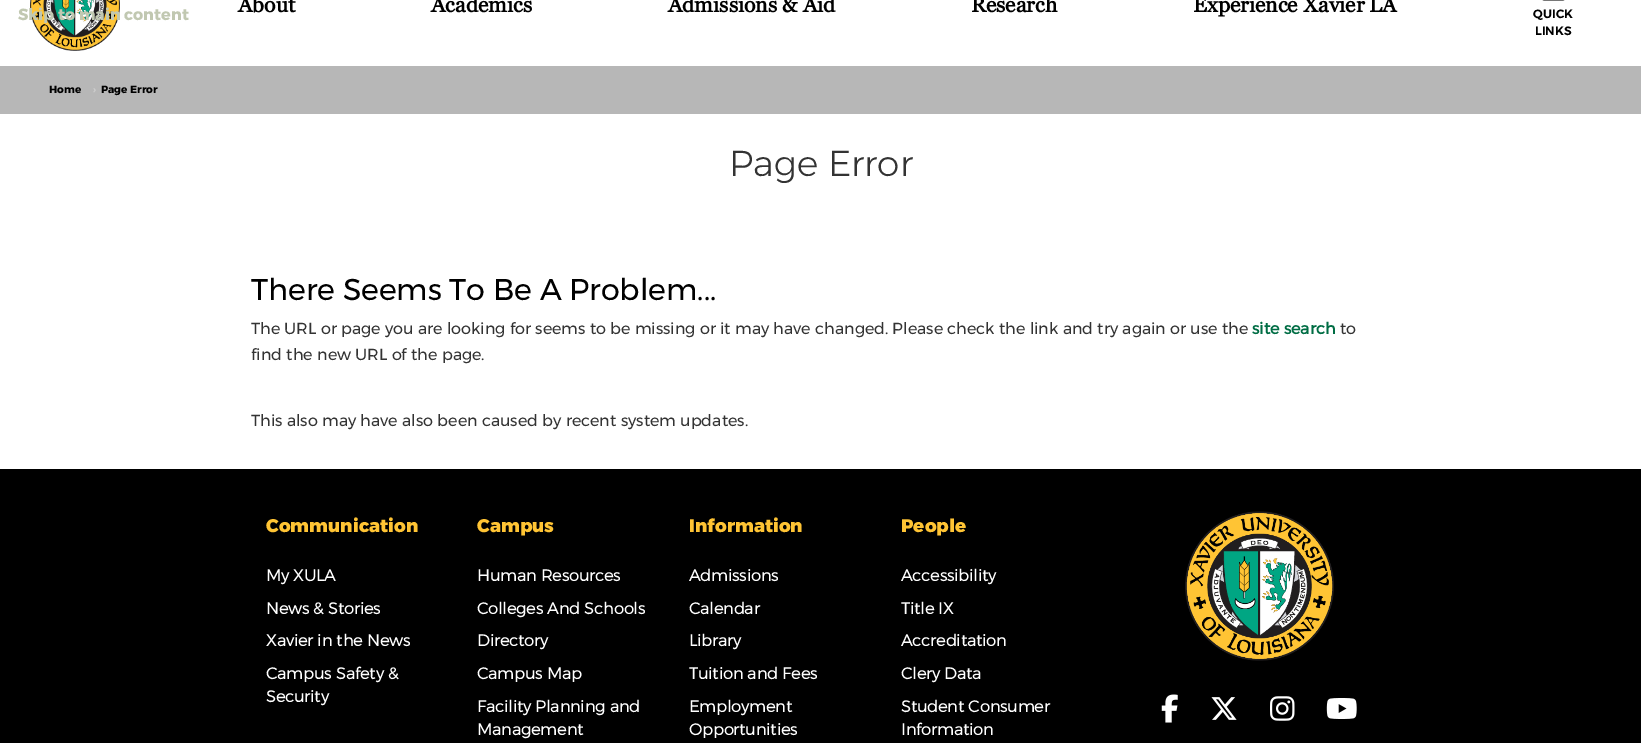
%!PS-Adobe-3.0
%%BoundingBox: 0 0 1641 743
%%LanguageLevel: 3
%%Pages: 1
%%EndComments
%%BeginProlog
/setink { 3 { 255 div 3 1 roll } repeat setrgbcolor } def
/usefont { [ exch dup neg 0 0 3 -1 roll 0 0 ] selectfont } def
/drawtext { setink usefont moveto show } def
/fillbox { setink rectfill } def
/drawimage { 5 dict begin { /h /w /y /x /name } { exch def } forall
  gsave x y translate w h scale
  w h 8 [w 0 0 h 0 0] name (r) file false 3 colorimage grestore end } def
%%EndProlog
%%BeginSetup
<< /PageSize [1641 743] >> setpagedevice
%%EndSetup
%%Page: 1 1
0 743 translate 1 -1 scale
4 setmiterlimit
0 0 1641 743 255 255 255 fillbox
(assets/img1.rgb) 30 0 90 51 drawimage
(Skip to main content) 18 20 /Montserrat-Bold 16 193 200 177 drawtext
(About) 238 12 /Georgia-Bold 21.25 0 0 0 drawtext
(Academics) 431 12 /Georgia-Bold 21.25 0 0 0 drawtext
(Admissions & Aid) 668 12 /Georgia-Bold 21.25 0 0 0 drawtext
(Research) 971 12 /Georgia-Bold 21.25 0 0 0 drawtext
(Experience Xavier LA) 1193 12 /Georgia-Bold 21.25 0 0 0 drawtext
(assets/img2.rgb) 1542 0 23 1 drawimage
(QUICK) 1533 18 /Montserrat-SemiBold 12 0 0 0 drawtext
(LINKS) 1535 35 /Montserrat-SemiBold 12 0 0 0 drawtext
0 66 1641 48 183 183 183 fillbox
(Home) 49 93 /Montserrat-Bold 10.5 0 0 0 drawtext
(›) 93 93 /Montserrat-Bold 10.5 204 204 204 drawtext
(Page Error) 101 93 /Montserrat-Bold 10.5 0 0 0 drawtext
(Page Error) 729 176 /Montserrat-Light 36 51 51 51 drawtext
(There Seems To Be A Problem...) 251 300 /Montserrat-Regular 30 0 0 0 drawtext
(The URL or page you are looking for seems to be missing or it may have changed. Please check the link and try again or use the) 251 334 /Montserrat-Regular 16 51 51 51 drawtext
(site search) 1252 334 /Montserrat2-Bold 16 0 109 68 drawtext
(to) 1340 334 /Montserrat-Regular 16 51 51 51 drawtext
(find the new URL of the page.) 251 360 /Montserrat-Regular 16 51 51 51 drawtext
(This also may have also been caused by recent system updates.) 251 426 /Montserrat-Regular 16 51 51 51 drawtext
0 469 1641 274 0 0 0 fillbox
(Communication) 266 532 /Montserrat-ExtraBold 18.25 255 196 52 drawtext
(My XULA) 266 581 /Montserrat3-Bold 16 255 255 255 drawtext
(News & Stories) 266 614 /Montserrat3-Bold 16 255 255 255 drawtext
(Xavier in the News) 266 646 /Montserrat3-Bold 16 255 255 255 drawtext
(Campus Safety &) 266 679 /Montserrat3-Bold 16 255 255 255 drawtext
(Security) 266 702 /Montserrat3-Bold 16 255 255 255 drawtext
(Campus) 477 532 /Montserrat-ExtraBold 18.25 255 196 52 drawtext
(Human Resources) 477 581 /Montserrat3-Bold 16 255 255 255 drawtext
(Colleges And Schools) 477 614 /Montserrat3-Bold 16 255 255 255 drawtext
(Directory) 477 646 /Montserrat3-Bold 16 255 255 255 drawtext
(Campus Map) 477 679 /Montserrat3-Bold 16 255 255 255 drawtext
(Facility Planning and) 477 712 /Montserrat3-Bold 16 255 255 255 drawtext
(Management) 477 735 /Montserrat3-Bold 16 255 255 255 drawtext
(Information) 689 532 /Montserrat-ExtraBold 18.25 255 196 52 drawtext
(Admissions) 689 581 /Montserrat3-Bold 16 255 255 255 drawtext
(Calendar) 689 614 /Montserrat3-Bold 16 255 255 255 drawtext
(Library) 689 646 /Montserrat3-Bold 16 255 255 255 drawtext
(Tuition and Fees) 689 679 /Montserrat3-Bold 16 255 255 255 drawtext
(Employment) 689 712 /Montserrat3-Bold 16 255 255 255 drawtext
(Opportunities) 689 735 /Montserrat3-Bold 16 255 255 255 drawtext
(People) 901 532 /Montserrat-ExtraBold 18.25 255 196 52 drawtext
(Accessibility) 901 581 /Montserrat3-Bold 16 255 255 255 drawtext
(Title IX) 901 614 /Montserrat3-Bold 16 255 255 255 drawtext
(Accreditation) 901 646 /Montserrat3-Bold 16 255 255 255 drawtext
(Clery Data) 901 679 /Montserrat3-Bold 16 255 255 255 drawtext
(Student Consumer) 901 712 /Montserrat3-Bold 16 255 255 255 drawtext
(Information) 901 735 /Montserrat3-Bold 16 255 255 255 drawtext
(assets/img3.rgb) 1185 511 149 150 drawimage
(assets/img4.rgb) 1161 694 17 29 drawimage
(assets/img5.rgb) 1211 697 26 23 drawimage
(assets/img6.rgb) 1270 696 25 25 drawimage
(assets/img7.rgb) 1326 698 31 21 drawimage
showpage
%%EOF
